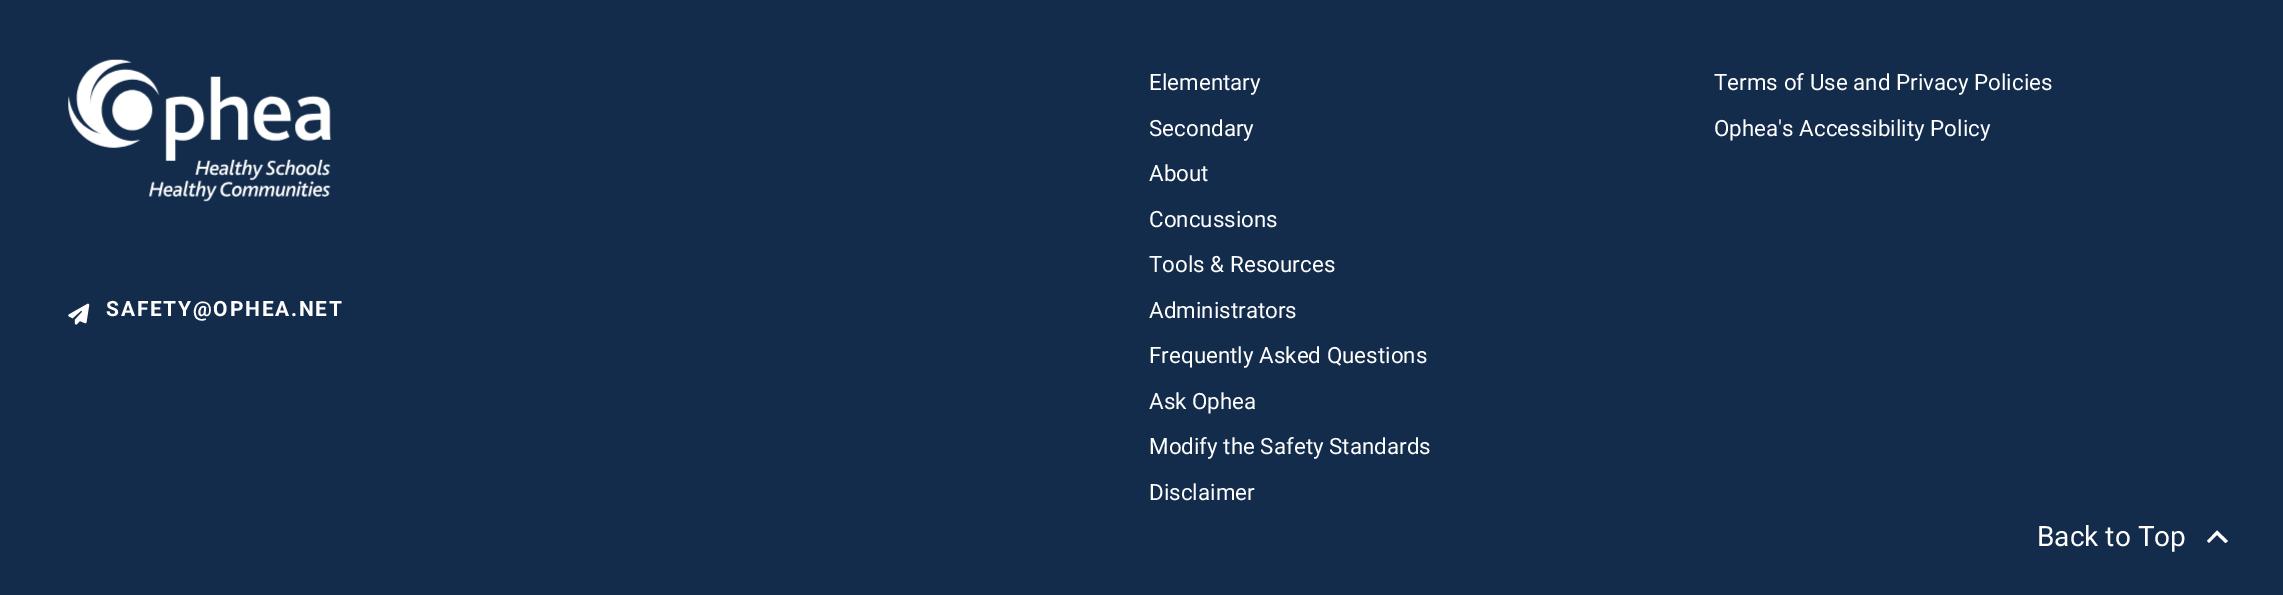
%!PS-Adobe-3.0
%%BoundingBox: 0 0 2283 595
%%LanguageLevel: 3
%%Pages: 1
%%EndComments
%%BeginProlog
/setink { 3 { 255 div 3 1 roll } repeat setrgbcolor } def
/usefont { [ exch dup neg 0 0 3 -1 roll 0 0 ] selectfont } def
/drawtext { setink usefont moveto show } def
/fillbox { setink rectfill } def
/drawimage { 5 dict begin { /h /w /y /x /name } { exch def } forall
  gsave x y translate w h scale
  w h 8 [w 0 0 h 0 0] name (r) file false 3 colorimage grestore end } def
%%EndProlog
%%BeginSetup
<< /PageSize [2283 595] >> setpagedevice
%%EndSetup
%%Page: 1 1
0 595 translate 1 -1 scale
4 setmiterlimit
0 0 2283 595 19 44 75 fillbox
(Elementary) 1149 90 /Roboto-Regular 22.4 255 255 255 drawtext
(Secondary) 1149 136 /Roboto-Regular 22.4 255 255 255 drawtext
(About) 1149 181 /Roboto-Regular 22.4 255 255 255 drawtext
(Concussions) 1149 227 /Roboto-Regular 22.4 255 255 255 drawtext
(Tools & Resources) 1149 272 /Roboto-Regular 22.4 255 255 255 drawtext
(Administrators) 1149 318 /Roboto-Regular 22.4 255 255 255 drawtext
(Frequently Asked Questions) 1149 363 /Roboto-Regular 22.4 255 255 255 drawtext
(Ask Ophea) 1149 409 /Roboto-Regular 22.4 255 255 255 drawtext
(Modify the Safety Standards) 1149 454 /Roboto-Regular 22.4 255 255 255 drawtext
(Disclaimer) 1149 500 /Roboto-Regular 22.4 255 255 255 drawtext
(Terms of Use and Privacy Policies) 1714 90 /Roboto-Regular 22.4 255 255 255 drawtext
(Ophea's Accessibility Policy) 1714 136 /Roboto-Regular 22.4 255 255 255 drawtext
(assets/img1.rgb) 68 59 264 143 drawimage
(assets/img2.rgb) 68 303 22 22 drawimage
/Roboto-Bold 21 usefont
106 316 moveto 1.75 0 (SAFETY@OPHEA.NET) ashow
(Back to Top) 2037 546 /Roboto-Regular 28 255 255 255 drawtext
2209 543 moveto 2207 541 lineto 2217 530.5 lineto 2228 541 lineto 2225.5 543 lineto 2217 535 lineto closepath fill
showpage
%%EOF
